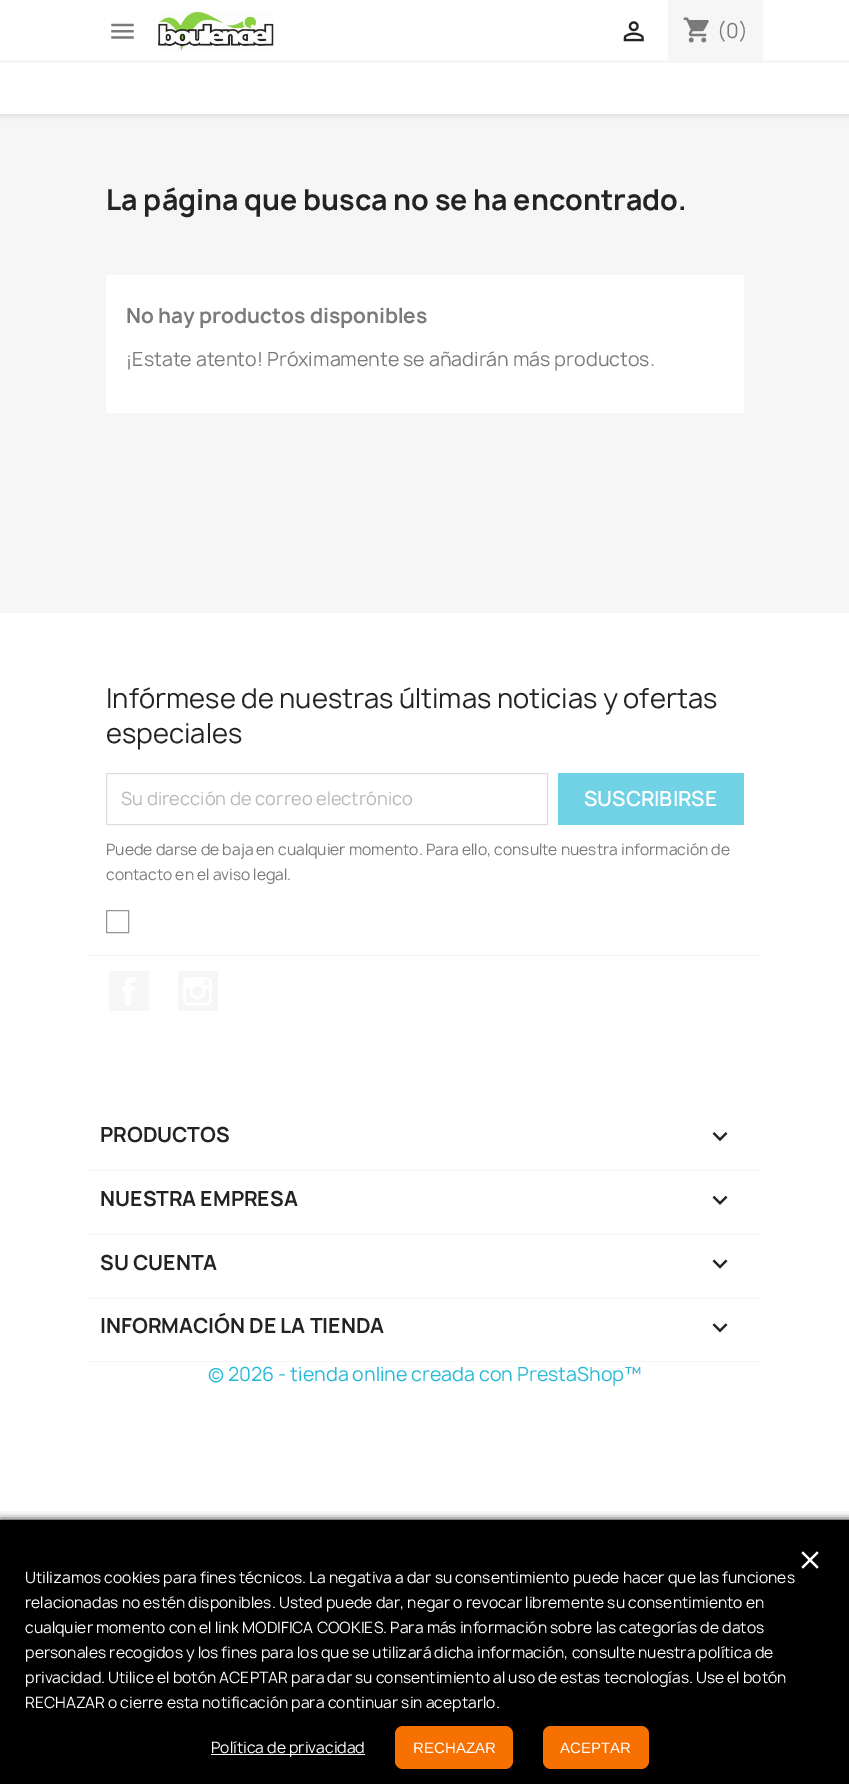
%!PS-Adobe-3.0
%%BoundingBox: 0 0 849 1784
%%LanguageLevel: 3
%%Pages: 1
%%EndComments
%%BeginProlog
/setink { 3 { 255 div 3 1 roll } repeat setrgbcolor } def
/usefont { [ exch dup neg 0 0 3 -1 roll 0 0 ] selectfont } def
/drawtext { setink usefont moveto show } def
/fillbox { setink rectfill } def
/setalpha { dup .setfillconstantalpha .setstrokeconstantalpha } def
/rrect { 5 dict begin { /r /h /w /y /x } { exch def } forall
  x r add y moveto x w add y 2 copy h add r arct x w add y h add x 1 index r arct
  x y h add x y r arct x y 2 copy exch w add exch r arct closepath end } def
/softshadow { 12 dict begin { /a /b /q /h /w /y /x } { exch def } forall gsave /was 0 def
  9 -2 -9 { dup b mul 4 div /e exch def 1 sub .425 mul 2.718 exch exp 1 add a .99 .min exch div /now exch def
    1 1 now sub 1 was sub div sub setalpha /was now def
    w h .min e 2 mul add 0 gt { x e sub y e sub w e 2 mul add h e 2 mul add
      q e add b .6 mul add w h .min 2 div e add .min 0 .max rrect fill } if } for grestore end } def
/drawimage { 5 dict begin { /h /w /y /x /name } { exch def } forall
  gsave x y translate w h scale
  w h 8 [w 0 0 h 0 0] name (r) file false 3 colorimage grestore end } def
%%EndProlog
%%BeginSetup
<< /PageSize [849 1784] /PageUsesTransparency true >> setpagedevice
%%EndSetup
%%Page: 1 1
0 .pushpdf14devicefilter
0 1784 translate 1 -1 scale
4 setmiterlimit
0 0 849 1784 255 255 255 fillbox
0 114 849 499 246 246 246 fillbox
0 0 0 setink
0 3 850 113 0 3 0.11 softshadow
0 0 849 114 255 255 255 fillbox
0 60 849 3 246 246 246 fillbox
(assets/img1.rgb) 111 23 23 16 drawimage
(assets/img2.rgb) 158 11 116 40 drawimage
(assets/img3.rgb) 623 21 21 21 drawimage
668 0 95 60 246 246 246 fillbox
(assets/img4.rgb) 683 17 26 26 drawimage
(\(0\)) 717 38 /Manrope-Regular 20 122 122 122 drawtext
(La página que busca no se ha encontrado.) 106 210 /Manrope-Bold 27.5 35 35 35 drawtext
106 275 638 138 255 255 255 fillbox
(No hay productos disponibles) 126 323 /Manrope-Bold 20 122 122 122 drawtext
(¡Estate atento! Próximamente se añadirán más productos.) 126 366 /Manrope-Regular 18.75 122 122 122 drawtext
88 955 675 1 246 246 246 fillbox
(Infórmese de nuestras últimas noticias y ofertas) 106 708 /Manrope-Regular 26.25 35 35 35 drawtext
(especiales) 106 743 /Manrope-Regular 26.25 35 35 35 drawtext
221 221 221 setink
106.5 773.5 441 51 rectstroke
(Su dirección de correo electrónico) 121 805 /Manrope-Regular 17.5 183 183 183 drawtext
558 773 186 52 113 210 229 fillbox
(SUSCRIBIRSE) 584 806 /Manrope-SemiBold 20 255 255 255 drawtext
(Puede darse de baja en cualquier momento. Para ello, consulte nuestra información de) 106 855 /Manrope-Regular 15 122 122 122 drawtext
(contacto en el aviso legal.) 106 880 /Manrope-Regular 15 122 122 122 drawtext
151 151 151 setink
106.5 910.5 22 22 rectstroke
109 971 40 40 246 246 246 fillbox
(assets/img5.rgb) 122 977 14 29 drawimage
178 971 40 40 246 246 246 fillbox
(assets/img6.rgb) 183 977 29 29 drawimage
88 1170 675 1 246 246 246 fillbox
(PRODUCTOS) 100 1142 /Manrope-Bold 20 35 35 35 drawtext
(assets/img7.rgb) 712 1132 16 10 drawimage
88 1234 675 1 246 246 246 fillbox
(NUESTRA EMPRESA) 100 1206 /Manrope-Bold 20 35 35 35 drawtext
(assets/img8.rgb) 712 1195 16 10 drawimage
88 1298 675 1 246 246 246 fillbox
(SU CUENTA) 100 1270 /Manrope-Bold 20 35 35 35 drawtext
(assets/img9.rgb) 712 1259 16 10 drawimage
88 1361 675 1 246 246 246 fillbox
(INFORMACIÓN DE LA TIENDA) 100 1333 /Manrope-Bold 20 35 35 35 drawtext
(assets/img10.rgb) 712 1323 16 10 drawimage
(© 2026 - tienda online creada con PrestaShop™) 208 1381 /Manrope-Regular 18.75 36 185 215 drawtext
0 0 0 setink
0 1520 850 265 0 4 1 softshadow
0 1520 849 264 0 0 0 fillbox
(assets/img11.rgb) 801 1551 18 18 drawimage
(Utilizamos cookies para fines técnicos. La negativa a dar su consentimiento puede hacer que las funciones) 25 1583 /Manrope-Regular 15 255 255 255 drawtext
(relacionadas no estén disponibles. Usted puede dar, negar o revocar libremente su consentimiento en) 25 1608 /Manrope-Regular 15 255 255 255 drawtext
(cualquier momento con el link MODIFICA COOKIES. Para más información sobre las categorías de datos) 25 1633 /Manrope-Regular 15 255 255 255 drawtext
(personales recogidos y los fines para los que se utilizará dicha información, consulte nuestra política de) 25 1658 /Manrope-Regular 15 255 255 255 drawtext
(privacidad. Utilice el botón ACEPTAR para dar su consentimiento al uso de estas tecnologías. Use el botón) 25 1683 /Manrope-Regular 15 255 255 255 drawtext
(RECHAZAR o cierre esta notificación para continuar sin aceptarlo.) 25 1708 /Manrope-Regular 15 255 255 255 drawtext
211 1754 154 1 255 255 255 fillbox
(Política de privacidad) 211 1753 /Manrope-Regular 15 255 255 255 drawtext
247 112 2 setink
395 1726 118 43 8 rrect fill
(RECHAZAR) 413 1753 /LiberationSans-Regular 15 255 255 255 drawtext
247 112 2 setink
543 1726 106 43 8 rrect fill
(ACEPTAR) 560 1753 /LiberationSans-Regular 15 255 255 255 drawtext
.poppdf14devicefilter showpage
%%EOF
